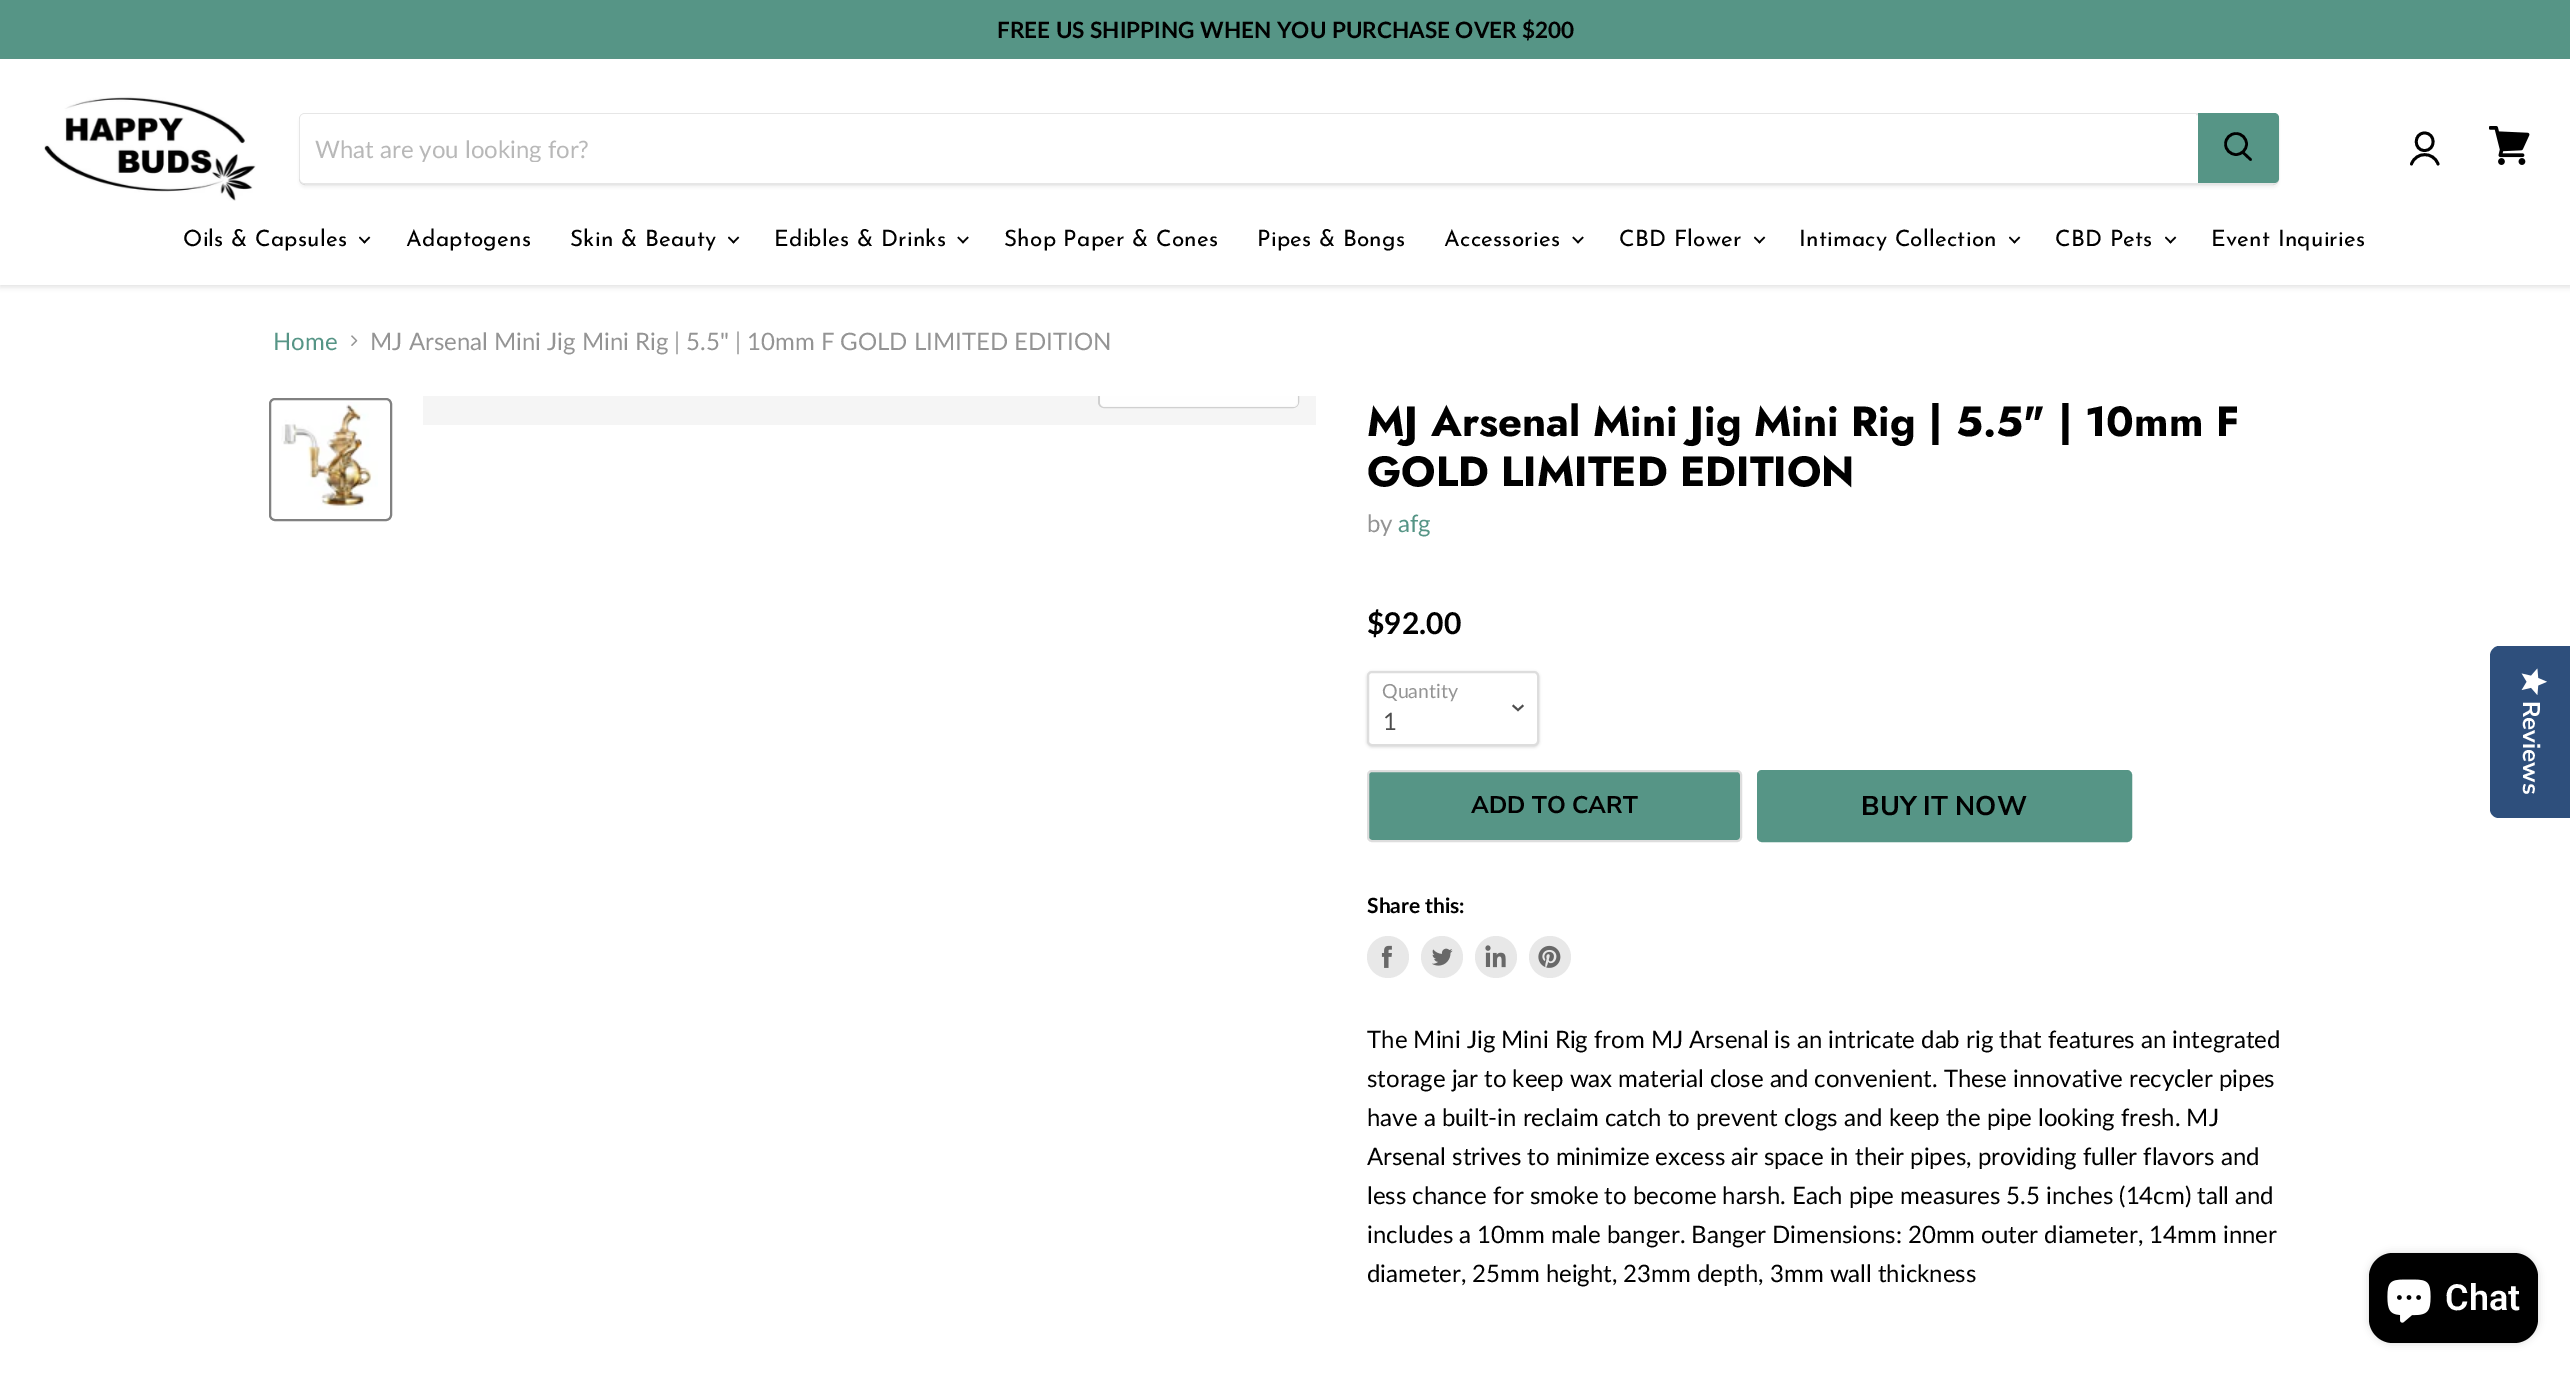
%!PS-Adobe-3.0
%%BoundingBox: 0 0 2570 1374
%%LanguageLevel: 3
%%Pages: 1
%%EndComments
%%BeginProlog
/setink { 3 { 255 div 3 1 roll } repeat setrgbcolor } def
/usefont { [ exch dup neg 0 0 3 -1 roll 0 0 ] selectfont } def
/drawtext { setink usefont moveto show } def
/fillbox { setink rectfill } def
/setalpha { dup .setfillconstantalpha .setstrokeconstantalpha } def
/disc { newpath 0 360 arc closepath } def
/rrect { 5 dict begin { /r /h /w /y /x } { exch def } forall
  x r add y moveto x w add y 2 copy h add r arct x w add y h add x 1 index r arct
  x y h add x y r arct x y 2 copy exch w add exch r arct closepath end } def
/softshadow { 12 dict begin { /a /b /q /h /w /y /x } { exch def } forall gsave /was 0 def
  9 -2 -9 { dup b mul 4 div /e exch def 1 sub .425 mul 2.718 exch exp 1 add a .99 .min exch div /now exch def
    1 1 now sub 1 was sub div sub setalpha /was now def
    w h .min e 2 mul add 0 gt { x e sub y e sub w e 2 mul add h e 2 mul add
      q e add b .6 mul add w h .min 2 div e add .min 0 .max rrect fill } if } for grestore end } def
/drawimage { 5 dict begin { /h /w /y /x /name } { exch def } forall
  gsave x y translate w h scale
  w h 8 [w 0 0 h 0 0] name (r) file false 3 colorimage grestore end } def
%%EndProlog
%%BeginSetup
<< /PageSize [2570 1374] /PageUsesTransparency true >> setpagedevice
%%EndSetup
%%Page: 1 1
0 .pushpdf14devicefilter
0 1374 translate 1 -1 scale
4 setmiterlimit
0 0 2570 1374 255 255 255 fillbox
0 0 2570 59 86 149 134 fillbox
(FREE US SHIPPING WHEN YOU PURCHASE OVER $200) 997 38 /Lato-Bold 22.5 0 0 0 drawtext
128 128 128 setink
0 60 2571 227 0 3 0.25 softshadow
0 59 2570 226 255 255 255 fillbox
(assets/img1.rgb) 44 96 212 105 drawimage
gsave
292 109 moveto 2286 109 lineto 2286 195 lineto 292 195 lineto closepath 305 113 moveto 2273 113 lineto 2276.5 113 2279 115.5 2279 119 curveto 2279 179 lineto 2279 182.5 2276.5 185 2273 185 curveto 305 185 lineto 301.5 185 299 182.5 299 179 curveto 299 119 lineto 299 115.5 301.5 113 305 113 curveto closepath eoclip newpath
128 128 128 setink
299 116 1980 72 6 2 0.11 softshadow
grestore
0.2 setalpha
128 128 128 setink
2 setlinewidth
300 114 1978 70 5 rrect stroke
1 setalpha
255 255 255 setink
305 114 moveto 2196 114 lineto 2196 183 lineto 305 183 lineto 302 183 300 181 300 178 curveto 300 119 lineto 300 116 302 114 305 114 curveto closepath fill
gsave
315 134 1866 28 rectclip
(What are you looking for?) 315 158 /Lato-Regular 24 184 184 184 drawtext
grestore
86 149 134 setink
2198 113 moveto 2274 113 lineto 2277 113 2279 115 2279 118 curveto 2279 178 lineto 2279 181 2277 183 2274 183 curveto 2198 183 lineto closepath fill
0 0 0 setink
2.6 setlinewidth
1 setlinecap
2250.5 159.5 moveto 2243 152.5 lineto stroke
0 setlinecap
2236 144 10.5 disc stroke
2.8 setlinewidth
1 setlinecap
1 setlinejoin
2424.5 150.5 moveto 2436 150.5 2436 133 2424.5 133 curveto 2413.5 133 2413.5 150.5 2424.5 150.5 curveto closepath 2438 164 moveto 2433.5 151.5 2416 151.5 2411.5 164 curveto stroke
(assets/img2.rgb) 2489 126 41 39 drawimage
/JosefinSans-Regular 22.5 usefont
183 246 moveto 0.25 0 (Oils & Capsules) ashow
(assets/img3.rgb) 359 236 12 8 drawimage
406 246 moveto 0.25 0 (Adaptogens) ashow
570 246 moveto 0.25 0 (Skin & Beauty) ashow
(assets/img3.rgb) 728 236 12 8 drawimage
774 246 moveto 0.25 0 (Edibles & Drinks) ashow
(assets/img4.rgb) 957 236 12 8 drawimage
1004 246 moveto 0.25 0 (Shop Paper & Cones) ashow
1257 246 moveto 0.25 0 (Pipes & Bongs) ashow
1444 246 moveto 0.25 0 (Accessories) ashow
(assets/img4.rgb) 1572 236 12 8 drawimage
1619 246 moveto 0.25 0 (CBD Flower) ashow
(assets/img3.rgb) 1754 236 12 8 drawimage
1799 246 moveto 0.25 0 (Intimacy Collection) ashow
(assets/img3.rgb) 2009 236 12 8 drawimage
2055 246 moveto 0.25 0 (CBD Pets) ashow
(assets/img3.rgb) 2165 236 12 8 drawimage
2211 246 moveto 0.25 0 (Event Inquiries) ashow
(Home) 273 350 /Lato-Regular 24 86 149 134 drawtext
(assets/img5.rgb) 351 335 7 11 drawimage
(MJ Arsenal Mini Jig Mini Rig | 5.5" | 10mm F GOLD LIMITED EDITION) 370 350 /Lato-Regular 24 148 148 148 drawtext
129 129 129 setink
2 setlinewidth
0 setlinecap
0 setlinejoin
270 399 121 121 5 rrect stroke
(assets/img6.rgb) 281 402 97 108 drawimage
423 396 893 29 245 245 245 fillbox
gsave
423 396 893 29 rectclip
208 208 208 setink
1099 364 199 43 5 rrect stroke
grestore
0.9 setalpha
255 255 255 setink
1100 396 moveto 1298 396 lineto 1298 402 lineto 1298 405 1296 407 1293 407 curveto 1105 407 lineto 1102 407 1100 405 1100 402 curveto closepath fill
1 setalpha
(MJ Arsenal Mini Jig Mini Rig | 5.5" | 10mm F) 1367 436 /Jost-Bold 42 0 0 0 drawtext
(GOLD LIMITED EDITION) 1367 486 /Jost-Bold 42 0 0 0 drawtext
(by) 1367 532 /Lato-Regular 24 148 148 148 drawtext
(afg) 1398 532 /Lato-Regular 24 86 149 134 drawtext
($92.00) 1367 634 /Lato-Bold 30 0 0 0 drawtext
1367 672 172 75 5 1.5 0.15 softshadow
255 255 255 setink
1368 672 170 73 4 rrect gsave fill grestore
221 221 221 setink
stroke
(Quantity) 1382 698 /Lato-Regular 19.5 148 148 148 drawtext
77 77 77 setink
1.9 setlinewidth
2 setlinecap
1518 710 moveto 1522.5 706 lineto 1518 710 moveto 1513.5 706 lineto stroke
(1) 1383 730 /Lato-Regular 24 77 77 77 drawtext
86 149 134 setink
1368 771 373 70 4 rrect gsave fill grestore
221 221 221 setink
2 setlinewidth
0 setlinecap
stroke
(ADD TO CART) 1471 813 /NunitoSans-Bold 24 0 0 0 drawtext
86 149 134 setink
1758 771 373 70 4 rrect gsave fill grestore
stroke
(BUY IT NOW) 1861 815 /NunitoSans-Bold 27 0 0 0 drawtext
(Share this:) 1367 913 /Lato-Bold 21 0 0 0 drawtext
232 232 232 setink
1388 957 21 disc fill
(assets/img7.rgb) 1381 945 11 23 drawimage
1442 957 21 disc fill
(assets/img8.rgb) 1432 948 21 18 drawimage
1496 957 21 disc fill
(assets/img9.rgb) 1485 945 21 23 drawimage
1550 957 21 disc fill
(assets/img10.rgb) 1538 945 23 23 drawimage
(The Mini Jig Mini Rig from MJ Arsenal is an intricate dab rig that features an integrated) 1367 1048 /Lato-Regular 24 0 0 0 drawtext
(storage jar to keep wax material close and convenient. These innovative recycler pipes) 1367 1087 /Lato-Regular 24 0 0 0 drawtext
(have a built-in reclaim catch to prevent clogs and keep the pipe looking fresh. MJ) 1367 1126 /Lato-Regular 24 0 0 0 drawtext
(Arsenal strives to minimize excess air space in their pipes, providing fuller flavors and) 1367 1165 /Lato-Regular 24 0 0 0 drawtext
(less chance for smoke to become harsh. Each pipe measures 5.5 inches \(14cm\) tall and) 1367 1204 /Lato-Regular 24 0 0 0 drawtext
(includes a 10mm male banger. Banger Dimensions: 20mm outer diameter, 14mm inner) 1367 1243 /Lato-Regular 24 0 0 0 drawtext
(diameter, 25mm height, 23mm depth, 3mm wall thickness) 1367 1282 /Lato-Regular 24 0 0 0 drawtext
46 79 124 setink
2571 646 moveto 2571 818 lineto 2499 818 lineto 2494 818 2490 814 2490 809 curveto 2490 656 lineto 2490 651 2494 646 2499 646 curveto closepath fill
(assets/img11.rgb) 2521 668 26 27 drawimage
/NunitoSans-Bold 24 usefont
255 255 255 setink
gsave 2523 701 translate 90 rotate 0 0 moveto (Reviews) show grestore
0 0 0 setink
2369 1253 169 90 24 4 0.15 softshadow
2369 1253 169 90 24 rrect fill
(assets/img12.rgb) 2387 1279 44 44 drawimage
(Chat) 2445 1310 /Roboto-SemiBold 36 255 255 255 drawtext
.poppdf14devicefilter showpage
%%EOF
